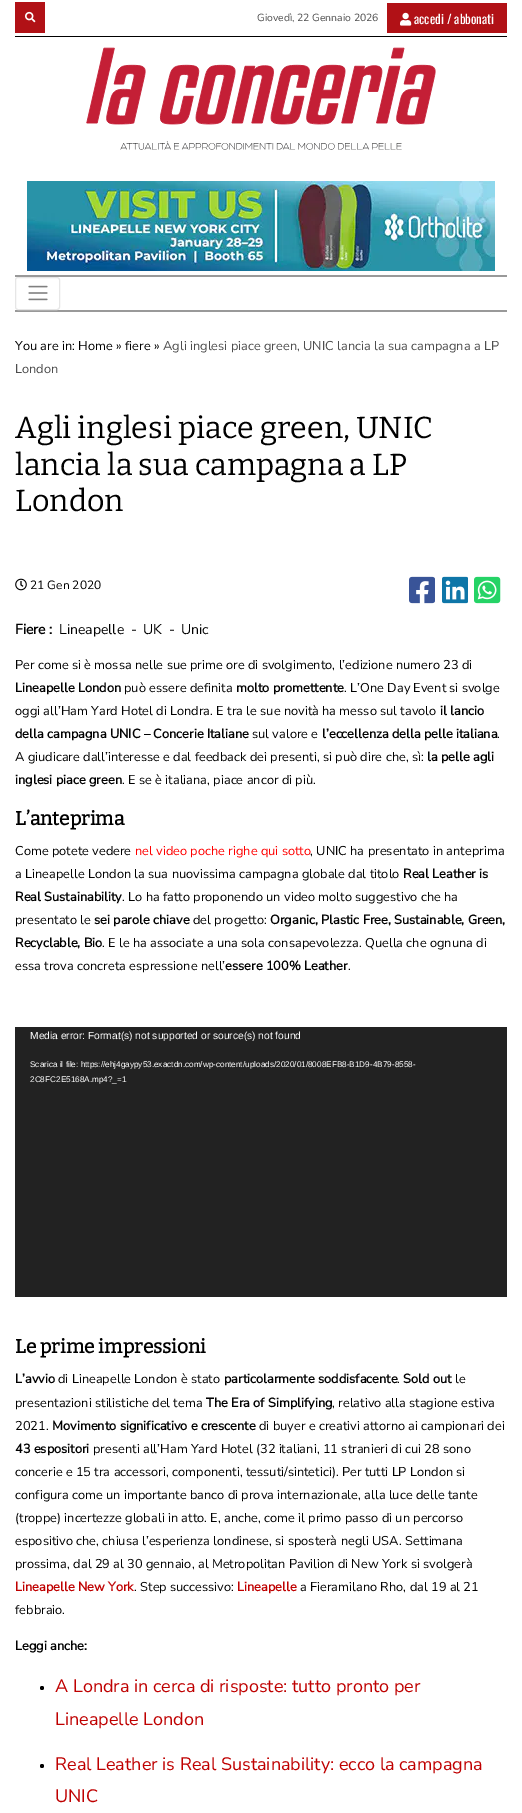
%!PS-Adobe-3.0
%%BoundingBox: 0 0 522 1813
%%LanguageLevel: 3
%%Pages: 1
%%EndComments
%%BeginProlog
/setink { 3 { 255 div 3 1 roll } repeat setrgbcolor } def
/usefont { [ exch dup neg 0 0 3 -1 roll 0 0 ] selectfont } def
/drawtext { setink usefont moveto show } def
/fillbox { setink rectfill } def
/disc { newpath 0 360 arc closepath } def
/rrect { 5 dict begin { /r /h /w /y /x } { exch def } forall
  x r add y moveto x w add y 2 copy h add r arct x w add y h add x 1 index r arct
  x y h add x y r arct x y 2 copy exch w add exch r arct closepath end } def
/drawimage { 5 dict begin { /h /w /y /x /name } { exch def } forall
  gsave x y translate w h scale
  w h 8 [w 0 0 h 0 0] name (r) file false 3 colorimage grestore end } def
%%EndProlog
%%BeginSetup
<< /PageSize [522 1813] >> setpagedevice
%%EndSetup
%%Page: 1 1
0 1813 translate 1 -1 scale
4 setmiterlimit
0 0 522 1813 255 255 255 fillbox
15 36 492 1 0 0 0 fillbox
15 2 30 31 177 17 22 fillbox
(assets/img1.rgb) 25 11 11 12 drawimage
(Giovedì, 22 Gennaio 2026) 257 21 /NunitoSans-ExtraLight 10.4 77 77 77 drawtext
387 3 120 30 177 17 22 fillbox
(assets/img2.rgb) 400 12 12 14 drawimage
(accedi / abbonati) 414 24 /Oswald-Regular 12.8 255 255 255 drawtext
(assets/img3.rgb) 86 47 350 103 drawimage
(assets/img4.rgb) 27 181 468 90 drawimage
15 275 492 2 153 153 153 fillbox
15 310 492 2 153 153 153 fillbox
230 230 230 setink
15.5 277.5 44 32 2.5 rrect stroke
(assets/img5.rgb) 28 285 20 16 drawimage
(You are in: Home » fiere ») 15 350 /NunitoSans-ExtraLight 12.8 0 0 0 drawtext
(Agli inglesi piace green, UNIC lancia la sua campagna a LP) 163 350 /NunitoSans-ExtraLight 12.8 77 77 77 drawtext
(London) 15 373 /NunitoSans-ExtraLight 12.8 77 77 77 drawtext
(Agli inglesi piace green, UNIC) 15 438 /Bitter-Thin 30.4 0 0 0 drawtext
(lancia la sua campagna a LP) 15 475 /Bitter-Thin 30.4 0 0 0 drawtext
(London) 15 511 /Bitter-Thin 30.4 0 0 0 drawtext
(assets/img6.rgb) 15 578 12 13 drawimage
(21 Gen 2020) 30 589 /NunitoSans-ExtraLight 12 0 0 0 drawtext
(assets/img7.rgb) 409 576 26 28 drawimage
(assets/img8.rgb) 442 576 26 28 drawimage
(assets/img9.rgb) 474 576 27 28 drawimage
(Fiere :) 15 634 /NunitoSans-Bold 14 0 0 0 drawtext
(Lineapelle) 59 634 /NunitoSans-ExtraLight 14 0 0 0 drawtext
(-) 131 634 /NunitoSans-ExtraLight 14 0 0 0 drawtext
(UK) 143 634 /NunitoSans-ExtraLight 14 0 0 0 drawtext
(-) 169 634 /NunitoSans-ExtraLight 14 0 0 0 drawtext
(Unic) 181 634 /NunitoSans-ExtraLight 14 0 0 0 drawtext
(Per come si è mossa nelle sue prime ore di svolgimento, l’edizione numero 23 di) 15 669 /NunitoSans-ExtraLight 12.8 0 0 0 drawtext
(Lineapelle London) 15 692 /NunitoSans-Bold 12.8 0 0 0 drawtext
(può essere definita) 124 692 /NunitoSans-ExtraLight 12.8 0 0 0 drawtext
(molto promettente) 236 692 /NunitoSans-Bold 12.8 0 0 0 drawtext
(. L’One Day Event si svolge) 344 692 /NunitoSans-ExtraLight 12.8 0 0 0 drawtext
(oggi all’Ham Yard Hotel di Londra. E tra le sue novità ha messo sul tavolo) 15 715 /NunitoSans-ExtraLight 12.8 0 0 0 drawtext
(il lancio) 440 715 /NunitoSans-Bold 12.8 0 0 0 drawtext
(della campagna UNIC – Concerie Italiane) 15 738 /NunitoSans-Bold 12.8 0 0 0 drawtext
(sul valore e) 252 738 /NunitoSans-ExtraLight 12.8 0 0 0 drawtext
(l’eccellenza della pelle italiana) 322 738 /NunitoSans-Bold 12.8 0 0 0 drawtext
(.) 497 738 /NunitoSans-ExtraLight 12.8 0 0 0 drawtext
(A giudicare dall’interesse e dal feedback dei presenti, si può dire che, sì:) 15 761 /NunitoSans-ExtraLight 12.8 0 0 0 drawtext
(la pelle agli) 427 761 /NunitoSans-Bold 12.8 0 0 0 drawtext
(inglesi piace green) 15 784 /NunitoSans-Bold 12.8 0 0 0 drawtext
(. E se è italiana, piace ancor di più.) 122 784 /NunitoSans-ExtraLight 12.8 0 0 0 drawtext
(L’anteprima) 15 825 /Bitter-Bold 19.25 0 0 0 drawtext
(Come potete vedere) 15 855 /NunitoSans-ExtraLight 12.8 0 0 0 drawtext
(nel video poche righe qui sotto) 135 855 /NunitoSans-ExtraLight 12.8 255 0 0 drawtext
(, UNIC ha presentato in anteprima) 310 855 /NunitoSans-ExtraLight 12.8 0 0 0 drawtext
(a Lineapelle London la sua nuovissima campagna globale dal titolo) 15 878 /NunitoSans-ExtraLight 12.8 0 0 0 drawtext
(Real Leather is) 403 878 /NunitoSans-Bold 12.8 0 0 0 drawtext
(Real Sustainability) 15 901 /NunitoSans-Bold 12.8 0 0 0 drawtext
(. Lo ha fatto proponendo un video molto suggestivo che ha) 122 901 /NunitoSans-ExtraLight 12.8 0 0 0 drawtext
(presentato le) 15 924 /NunitoSans-ExtraLight 12.8 0 0 0 drawtext
(sei parole chiave) 94 924 /NunitoSans-Bold 12.8 0 0 0 drawtext
(del progetto:) 193 924 /NunitoSans-ExtraLight 12.8 0 0 0 drawtext
(Organic, Plastic Free, Sustainable, Green,) 270 924 /NunitoSans-Bold 12.8 0 0 0 drawtext
(Recyclable, Bio) 15 947 /NunitoSans-Bold 12.8 0 0 0 drawtext
(. E le ha associate a una sola consapevolezza. Quella che ognuna di) 102 947 /NunitoSans-ExtraLight 12.8 0 0 0 drawtext
(essa trova concreta espressione nell’) 15 970 /NunitoSans-ExtraLight 12.8 0 0 0 drawtext
(essere 100% Leather) 225 970 /NunitoSans-Bold 12.8 0 0 0 drawtext
(.) 348 970 /NunitoSans-ExtraLight 12.8 0 0 0 drawtext
15 1027 492 270 34 34 34 fillbox
(Media error: Format\(s\) not supported or source\(s\) not found) 30 1039 /LiberationSans-Regular 10.25 255 255 255 drawtext
(Scarica il file: https://ehj4gaypy53.exactdn.com/wp-content/uploads/2020/01/8008EFB8-B1D9-4B79-8558-) 30 1067 /LiberationSans-Regular 8.2 255 255 255 drawtext
(2C8FC2E5168A.mp4?_=1) 30 1082 /LiberationSans-Regular 8.2 255 255 255 drawtext
(Le prime impressioni) 15 1353 /Bitter-Bold 19.25 0 0 0 drawtext
(L’avvio) 15 1383 /NunitoSans-Bold 12.8 0 0 0 drawtext
(di Lineapelle London è stato) 58 1383 /NunitoSans-ExtraLight 12.8 0 0 0 drawtext
(particolarmente soddisfacente) 224 1383 /NunitoSans-Bold 12.8 0 0 0 drawtext
(.) 397 1383 /NunitoSans-ExtraLight 12.8 0 0 0 drawtext
(Sold out) 403 1383 /NunitoSans-Bold 12.8 0 0 0 drawtext
(le) 455 1383 /NunitoSans-ExtraLight 12.8 0 0 0 drawtext
(presentazioni stilistiche del tema) 15 1407 /NunitoSans-ExtraLight 12.8 0 0 0 drawtext
(The Era of Simplifying) 206 1407 /NunitoSans-Bold 12.8 0 0 0 drawtext
(, relativo alla stagione estiva) 332 1407 /NunitoSans-ExtraLight 12.8 0 0 0 drawtext
(2021.) 15 1430 /NunitoSans-ExtraLight 12.8 0 0 0 drawtext
(Movimento significativo e crescente) 52 1430 /NunitoSans-Bold 12.8 0 0 0 drawtext
(di buyer e creativi attorno ai campionari dei) 259 1430 /NunitoSans-ExtraLight 12.8 0 0 0 drawtext
(43 espositori) 15 1453 /NunitoSans-Bold 12.8 0 0 0 drawtext
(presenti all’Ham Yard Hotel \(32 italiani, 11 stranieri di cui 28 sono) 93 1453 /NunitoSans-ExtraLight 12.8 0 0 0 drawtext
(concerie e 15 tra accessori, componenti, tessuti/sintetici\). Per tutti LP London si) 15 1476 /NunitoSans-ExtraLight 12.8 0 0 0 drawtext
(configura come un importante banco di prova internazionale, alla luce delle tante) 15 1499 /NunitoSans-ExtraLight 12.8 0 0 0 drawtext
(\(troppe\) incertezze globali in atto. E, anche, come il primo passo di un percorso) 15 1522 /NunitoSans-ExtraLight 12.8 0 0 0 drawtext
(espositivo che, chiusa l’esperienza londinese, si sposterà negli USA. Settimana) 15 1545 /NunitoSans-ExtraLight 12.8 0 0 0 drawtext
(prossima, dal 29 al 30 gennaio, al Metropolitan Pavilion di New York si svolgerà) 15 1568 /NunitoSans-ExtraLight 12.8 0 0 0 drawtext
(Lineapelle New York) 15 1591 /NunitoSans-Bold 12.8 191 0 0 drawtext
(. Step successivo:) 134 1591 /NunitoSans-ExtraLight 12.8 0 0 0 drawtext
(Lineapelle) 237 1591 /NunitoSans-Bold 12.8 191 0 0 drawtext
(a Fieramilano Rho, dal 19 al 21) 300 1591 /NunitoSans-ExtraLight 12.8 0 0 0 drawtext
(febbraio.) 15 1614 /NunitoSans-ExtraLight 12.8 0 0 0 drawtext
(Leggi anche:) 15 1650 /NunitoSans-Bold 12.8 0 0 0 drawtext
42 1688 2 disc fill
(A Londra in cerca di risposte: tutto pronto per) 55 1692 /NunitoSans-ExtraLight 18 191 0 0 drawtext
(Lineapelle London) 55 1725 /NunitoSans-ExtraLight 18 191 0 0 drawtext
0 0 0 setink
42 1766 2 disc fill
(Real Leather is Real Sustainability: ecco la campagna) 55 1770 /NunitoSans-ExtraLight 18 191 0 0 drawtext
(UNIC) 55 1802 /NunitoSans-ExtraLight 18 191 0 0 drawtext
showpage
%%EOF
